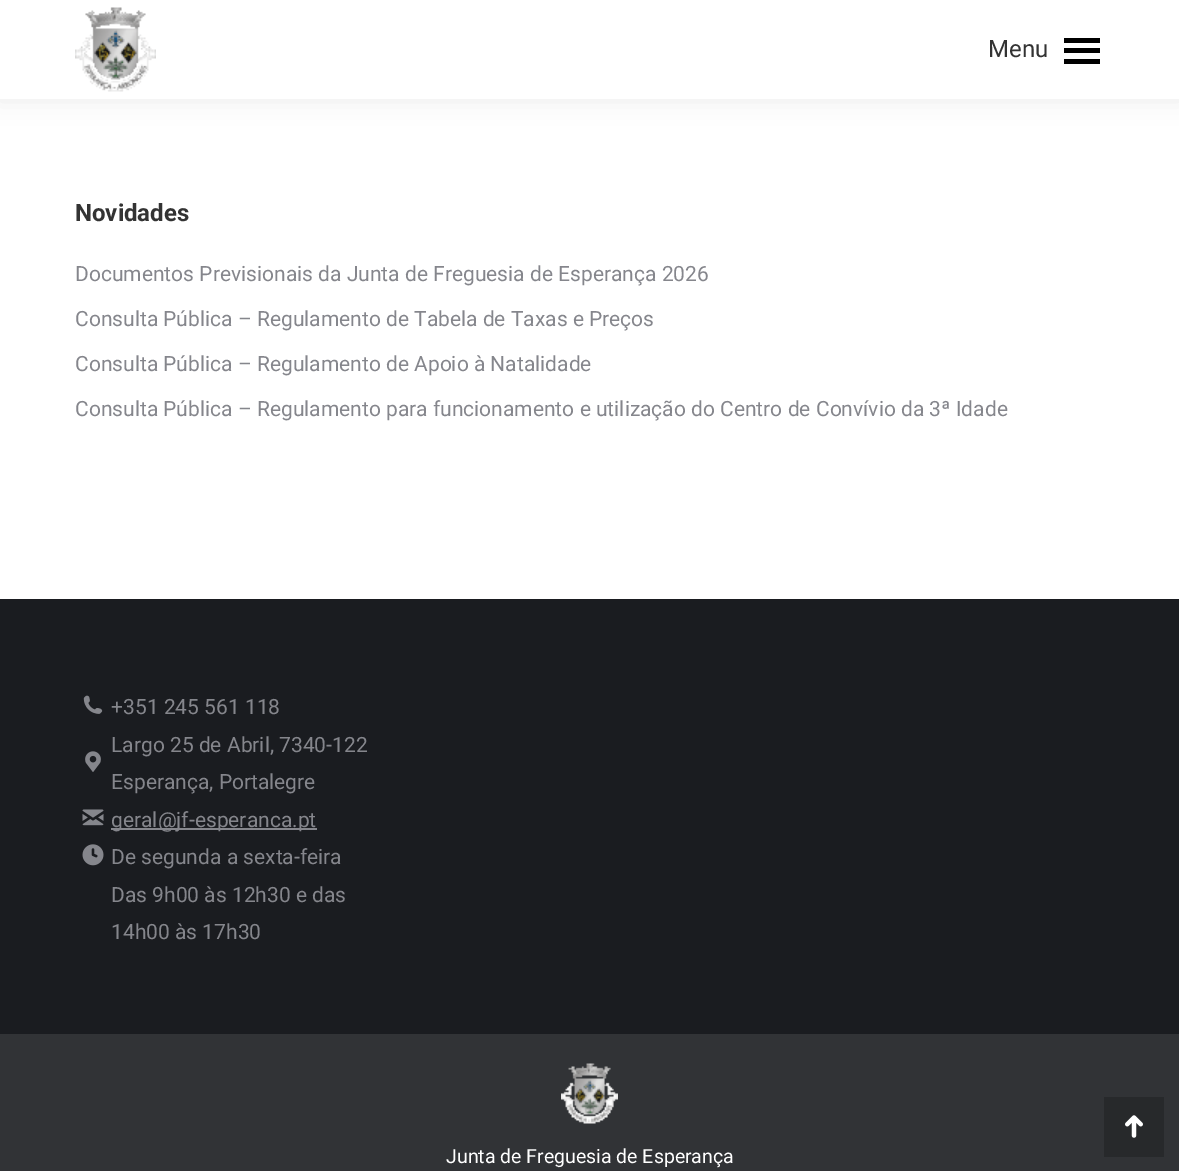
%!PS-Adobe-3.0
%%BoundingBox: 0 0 1179 1171
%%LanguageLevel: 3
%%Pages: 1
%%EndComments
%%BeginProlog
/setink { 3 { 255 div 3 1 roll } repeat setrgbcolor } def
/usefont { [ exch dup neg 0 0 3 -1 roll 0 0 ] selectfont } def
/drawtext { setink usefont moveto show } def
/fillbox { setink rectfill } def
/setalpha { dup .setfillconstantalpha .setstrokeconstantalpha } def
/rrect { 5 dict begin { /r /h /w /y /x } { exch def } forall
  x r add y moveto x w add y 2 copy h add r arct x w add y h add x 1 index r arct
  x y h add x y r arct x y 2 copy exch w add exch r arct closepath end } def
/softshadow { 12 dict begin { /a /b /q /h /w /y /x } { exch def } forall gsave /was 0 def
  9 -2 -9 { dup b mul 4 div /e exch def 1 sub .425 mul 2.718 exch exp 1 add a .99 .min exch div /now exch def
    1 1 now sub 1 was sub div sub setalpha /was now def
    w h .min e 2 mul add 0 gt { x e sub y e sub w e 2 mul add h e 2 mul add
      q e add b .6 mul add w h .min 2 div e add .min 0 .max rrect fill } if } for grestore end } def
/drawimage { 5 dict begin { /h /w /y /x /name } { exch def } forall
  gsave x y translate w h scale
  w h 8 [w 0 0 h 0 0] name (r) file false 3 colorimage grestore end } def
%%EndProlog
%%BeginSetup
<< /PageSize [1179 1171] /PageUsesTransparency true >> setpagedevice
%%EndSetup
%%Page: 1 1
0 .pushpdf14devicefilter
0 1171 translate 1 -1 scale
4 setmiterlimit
0 0 1179 1171 255 255 255 fillbox
0 0 0 setink
-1 -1 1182 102 0 11 0.07 softshadow
0 0 1179 99 255 255 255 fillbox
(assets/img1.rgb) 75 7 81 85 drawimage
(Menu) 988 57 /Roboto-Regular 24 51 51 51 drawtext
1064 38 36 5 0 0 0 fillbox
1064 48 36 5 0 0 0 fillbox
1064 59 36 5 0 0 0 fillbox
(Novidades) 75 221 /Roboto-Bold 24 51 51 51 drawtext
(Documentos Previsionais da Junta de Freguesia de Esperança 2026) 75 281 /Roboto-Regular 21 133 134 140 drawtext
(Consulta Pública – Regulamento de Tabela de Taxas e Preços) 75 326 /Roboto-Regular 21 133 134 140 drawtext
(Consulta Pública – Regulamento de Apoio à Natalidade) 75 371 /Roboto-Regular 21 133 134 140 drawtext
(Consulta Pública – Regulamento para funcionamento e utilização do Centro de Convívio da 3ª Idade) 75 416 /Roboto-Regular 21 133 134 140 drawtext
0 599 1179 435 26 28 32 fillbox
(assets/img2.rgb) 83 695 20 19 drawimage
(+351 245 561 118) 111 714 /Roboto-Regular 21 133 134 140 drawtext
(assets/img3.rgb) 85 751 16 21 drawimage
(Largo 25 de Abril, 7340-122) 111 752 /Roboto-Regular 21 133 134 140 drawtext
(Esperança, Portalegre) 111 789 /Roboto-Regular 21 133 134 140 drawtext
(assets/img4.rgb) 82 809 22 17 drawimage
111 828 206 2 133 134 140 fillbox
(geral@jf-esperanca.pt) 111 827 /Roboto-Regular 21 133 134 140 drawtext
(assets/img5.rgb) 82 844 22 22 drawimage
(De segunda a sexta-feira) 111 864 /Roboto-Regular 21 133 134 140 drawtext
(Das 9h00 às 12h30 e das) 111 902 /Roboto-Regular 21 133 134 140 drawtext
(14h00 às 17h30) 111 939 /Roboto-Regular 21 133 134 140 drawtext
0 1034 1179 137 49 51 54 fillbox
(assets/img6.rgb) 561 1063 57 61 drawimage
(Junta de Freguesia de Esperança) 446 1163 /Roboto-Regular 19.5 255 255 255 drawtext
1104 1097 60 60 39 41 43 fillbox
(assets/img7.rgb) 1125 1115 18 23 drawimage
.poppdf14devicefilter showpage
%%EOF
